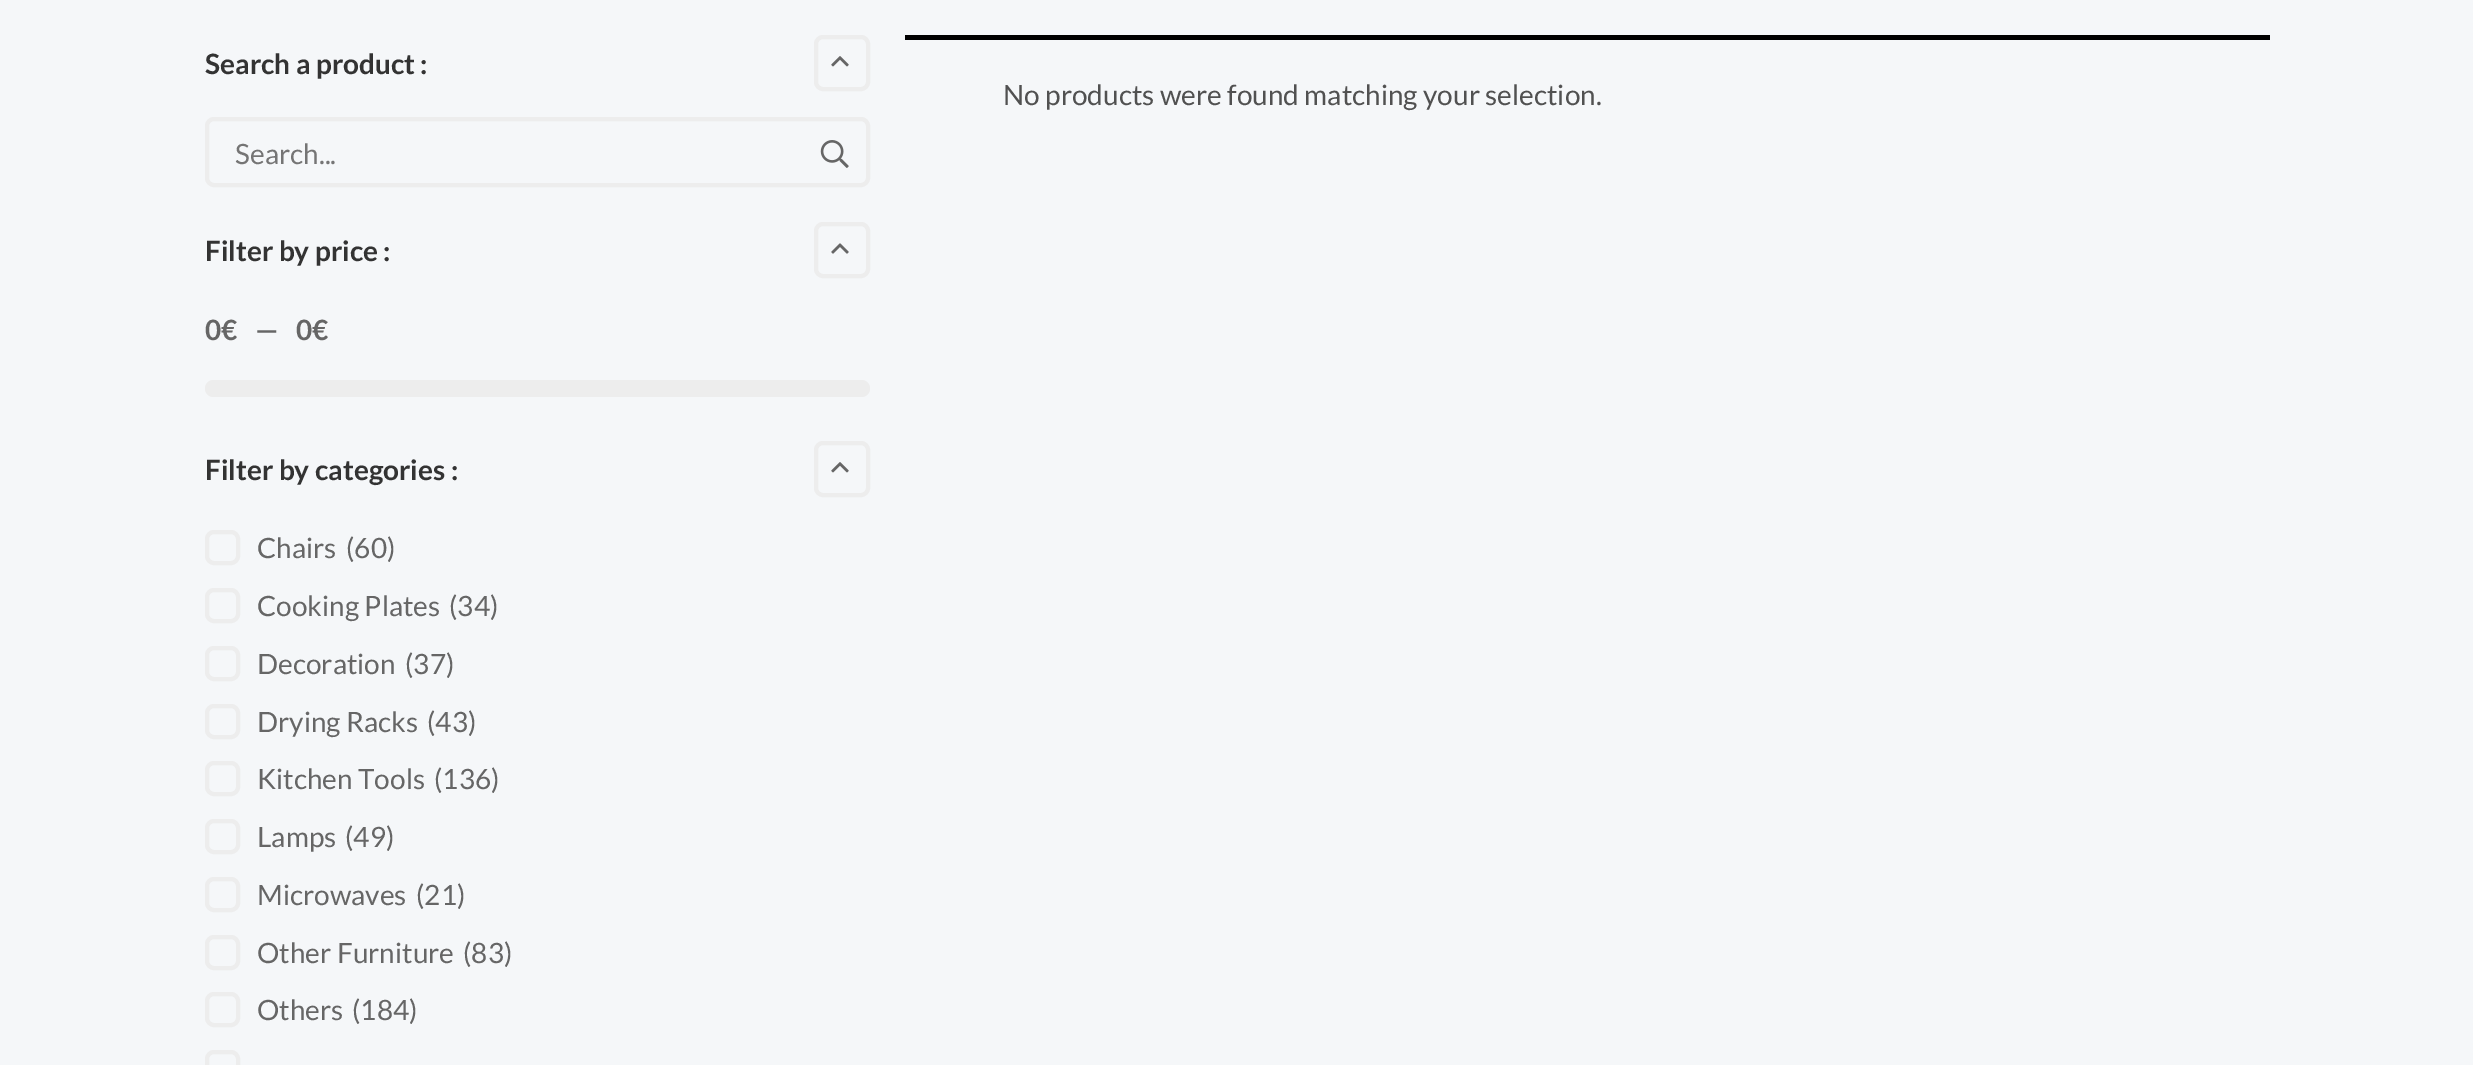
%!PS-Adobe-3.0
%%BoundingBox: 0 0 2473 1065
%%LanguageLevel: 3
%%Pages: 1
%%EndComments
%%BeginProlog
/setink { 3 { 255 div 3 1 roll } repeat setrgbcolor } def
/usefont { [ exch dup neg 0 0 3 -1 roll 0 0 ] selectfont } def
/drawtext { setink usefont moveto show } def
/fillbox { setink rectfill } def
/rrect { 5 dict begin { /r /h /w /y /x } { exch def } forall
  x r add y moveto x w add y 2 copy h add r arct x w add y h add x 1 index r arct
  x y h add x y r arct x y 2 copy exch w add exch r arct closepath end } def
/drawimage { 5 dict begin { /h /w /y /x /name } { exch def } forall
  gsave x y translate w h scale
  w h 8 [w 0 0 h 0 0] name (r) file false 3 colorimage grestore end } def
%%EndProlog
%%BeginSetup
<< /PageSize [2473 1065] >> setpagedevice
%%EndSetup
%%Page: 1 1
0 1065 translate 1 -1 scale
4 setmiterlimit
0 0 2473 1065 245 247 249 fillbox
(Search a product :) 205 74 /Lato-Bold 28 51 51 51 drawtext
237 237 237 setink
4 setlinewidth
816 37 52 52 7 rrect stroke
(assets/img1.rgb) 831 56 18 11 drawimage
207 119 661 66 7 rrect stroke
(Search...) 235 164 /Lato-Regular 28 117 117 117 drawtext
(assets/img2.rgb) 820 140 29 28 drawimage
(Filter by price :) 205 261 /Lato-Bold 28 51 51 51 drawtext
237 237 237 setink
816 224 52 52 7 rrect stroke
(assets/img3.rgb) 831 243 18 11 drawimage
(0€) 205 340 /Lato-Bold 28 102 102 102 drawtext
(—) 255 340 /Lato-Bold 28 102 102 102 drawtext
(0€) 296 340 /Lato-Bold 28 102 102 102 drawtext
237 237 237 setink
205 380 665 17 8.5 rrect fill
(Filter by categories :) 205 480 /Lato-Bold 28 51 51 51 drawtext
237 237 237 setink
816 443 52 52 7 rrect stroke
(assets/img1.rgb) 831 462 18 11 drawimage
207 532 31 31 7 rrect stroke
(Chairs) 257 558 /Lato-Regular 28 102 102 102 drawtext
(\(60\)) 346 558 /Lato-Regular 28 102 102 102 drawtext
237 237 237 setink
207 590 31 31 7 rrect stroke
(Cooking Plates) 257 616 /Lato-Regular 28 102 102 102 drawtext
(\(34\)) 449 616 /Lato-Regular 28 102 102 102 drawtext
237 237 237 setink
207 648 31 31 7 rrect stroke
(Decoration) 257 674 /Lato-Regular 28 102 102 102 drawtext
(\(37\)) 405 674 /Lato-Regular 28 102 102 102 drawtext
237 237 237 setink
207 706 31 31 7 rrect stroke
(Drying Racks) 257 732 /Lato-Regular 28 102 102 102 drawtext
(\(43\)) 427 732 /Lato-Regular 28 102 102 102 drawtext
237 237 237 setink
207 763 31 31 7 rrect stroke
(Kitchen Tools) 257 789 /Lato-Regular 28 102 102 102 drawtext
(\(136\)) 434 789 /Lato-Regular 28 102 102 102 drawtext
237 237 237 setink
207 821 31 31 7 rrect stroke
(Lamps) 257 847 /Lato-Regular 28 102 102 102 drawtext
(\(49\)) 345 847 /Lato-Regular 28 102 102 102 drawtext
237 237 237 setink
207 879 31 31 7 rrect stroke
(Microwaves) 257 905 /Lato-Regular 28 102 102 102 drawtext
(\(21\)) 416 905 /Lato-Regular 28 102 102 102 drawtext
237 237 237 setink
207 937 31 31 7 rrect stroke
(Other Furniture) 257 963 /Lato-Regular 28 102 102 102 drawtext
(\(83\)) 463 963 /Lato-Regular 28 102 102 102 drawtext
237 237 237 setink
207 994 31 31 7 rrect stroke
(Others) 257 1020 /Lato-Regular 28 102 102 102 drawtext
(\(184\)) 352 1020 /Lato-Regular 28 102 102 102 drawtext
237 237 237 setink
207 1052 31 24 7 rrect stroke
905 35 1365 5 0 0 0 fillbox
(No products were found matching your selection.) 1003 105 /Lato-Regular 28 81 81 81 drawtext
showpage
%%EOF
